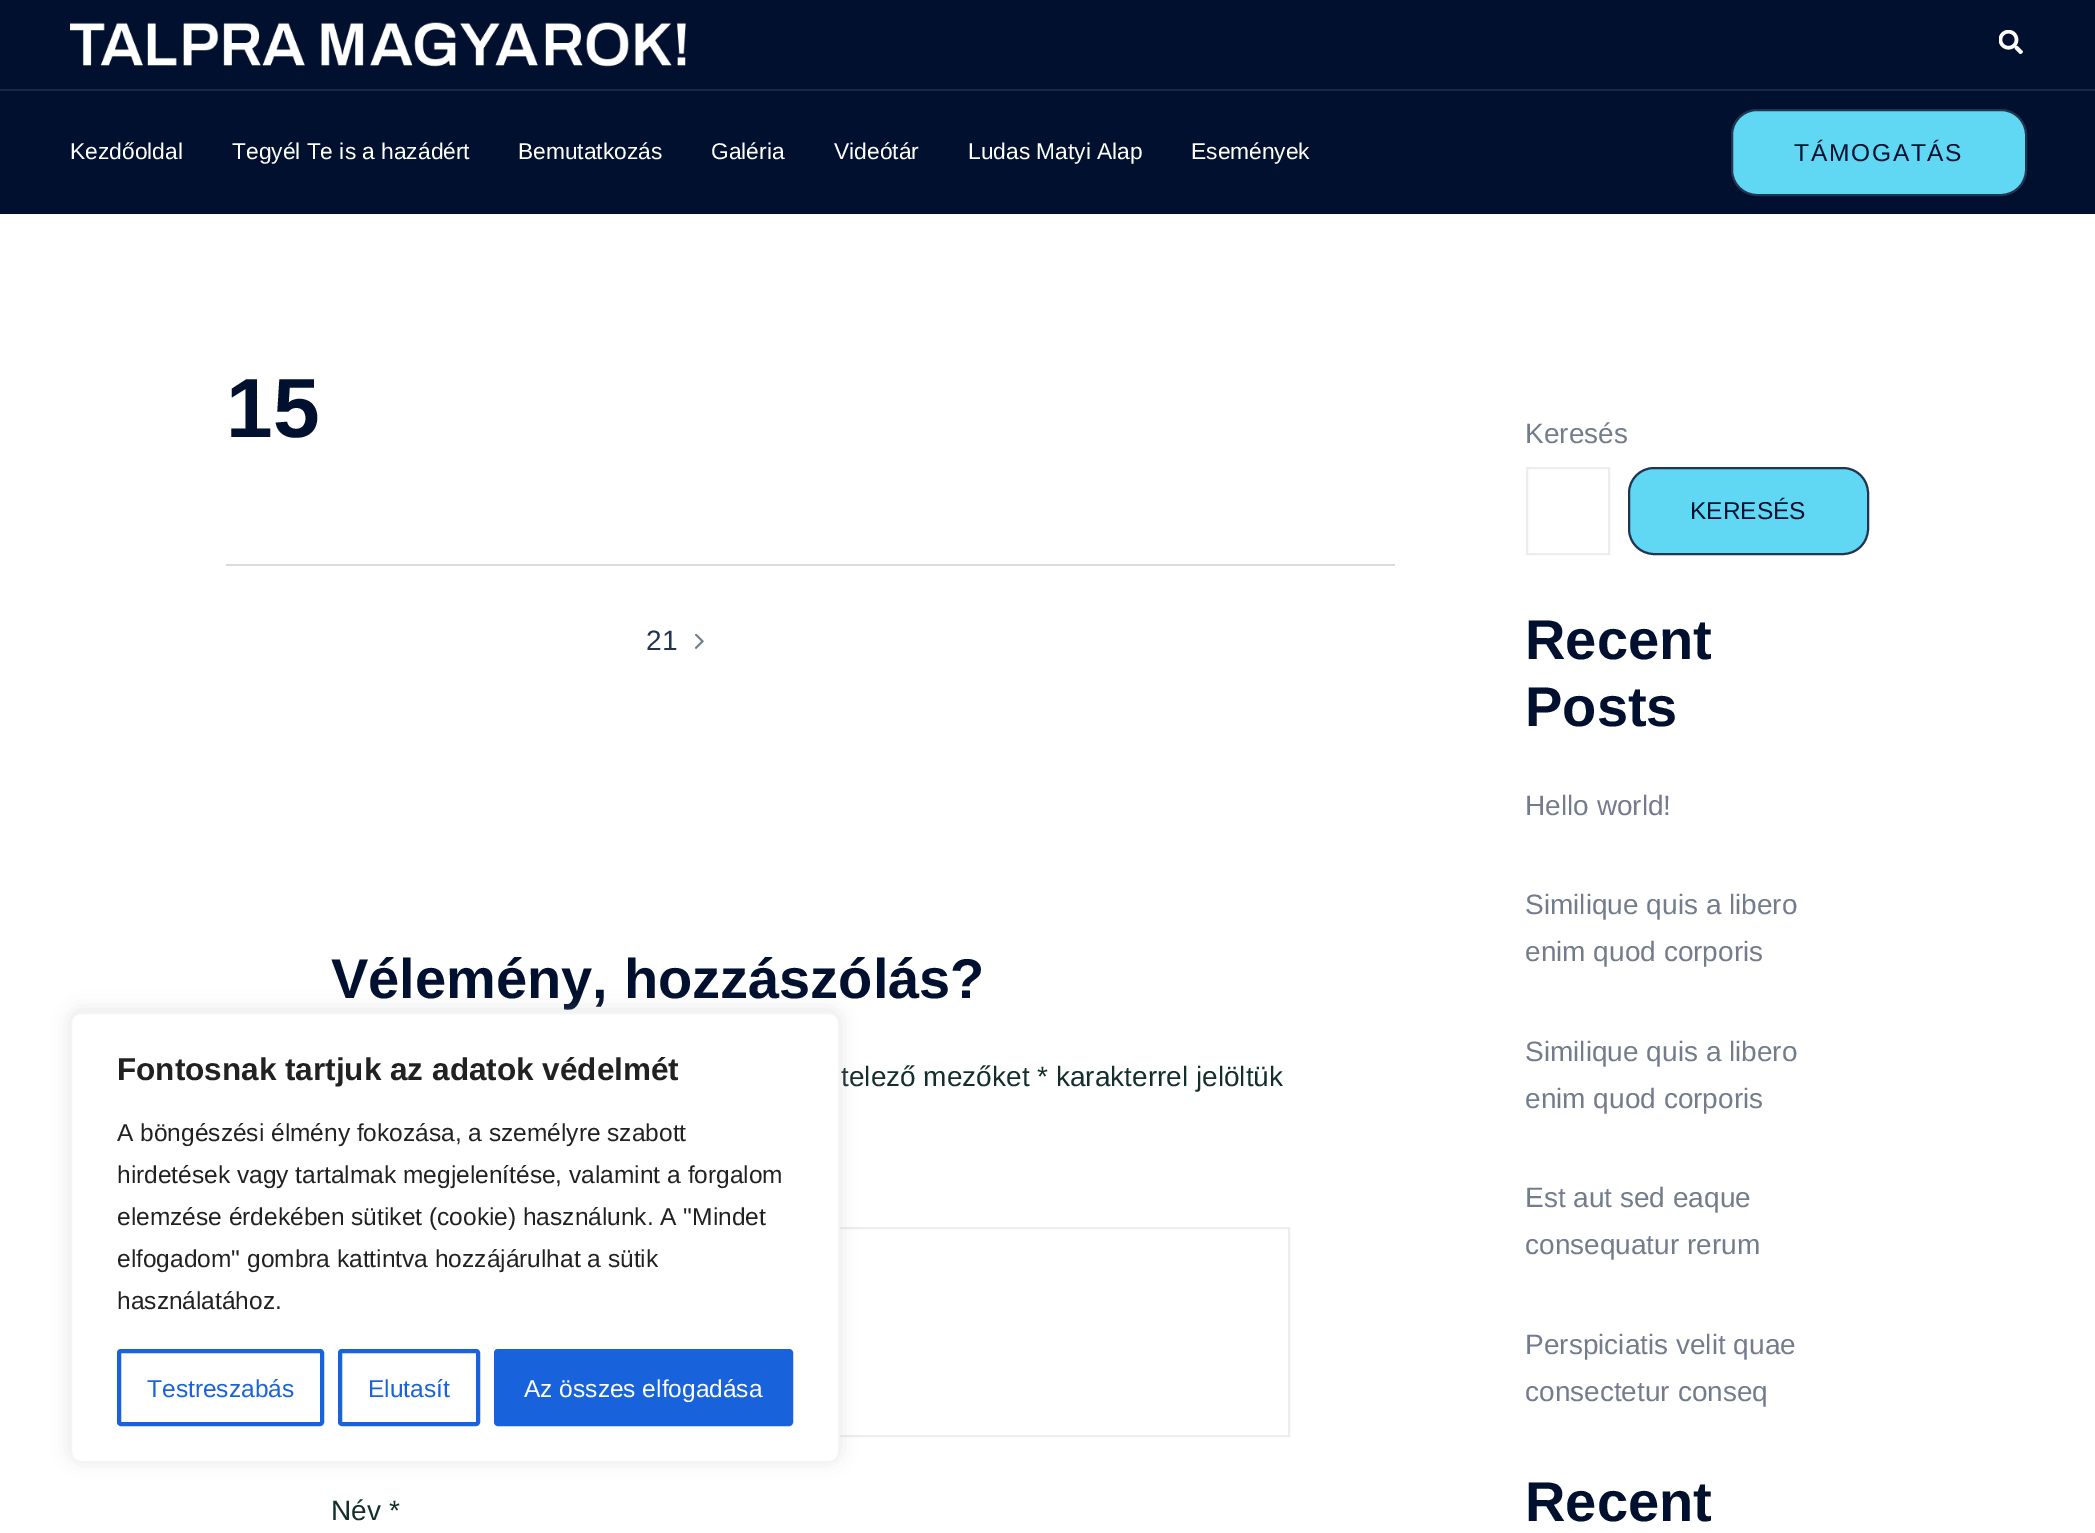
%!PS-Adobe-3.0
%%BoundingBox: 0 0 2095 1533
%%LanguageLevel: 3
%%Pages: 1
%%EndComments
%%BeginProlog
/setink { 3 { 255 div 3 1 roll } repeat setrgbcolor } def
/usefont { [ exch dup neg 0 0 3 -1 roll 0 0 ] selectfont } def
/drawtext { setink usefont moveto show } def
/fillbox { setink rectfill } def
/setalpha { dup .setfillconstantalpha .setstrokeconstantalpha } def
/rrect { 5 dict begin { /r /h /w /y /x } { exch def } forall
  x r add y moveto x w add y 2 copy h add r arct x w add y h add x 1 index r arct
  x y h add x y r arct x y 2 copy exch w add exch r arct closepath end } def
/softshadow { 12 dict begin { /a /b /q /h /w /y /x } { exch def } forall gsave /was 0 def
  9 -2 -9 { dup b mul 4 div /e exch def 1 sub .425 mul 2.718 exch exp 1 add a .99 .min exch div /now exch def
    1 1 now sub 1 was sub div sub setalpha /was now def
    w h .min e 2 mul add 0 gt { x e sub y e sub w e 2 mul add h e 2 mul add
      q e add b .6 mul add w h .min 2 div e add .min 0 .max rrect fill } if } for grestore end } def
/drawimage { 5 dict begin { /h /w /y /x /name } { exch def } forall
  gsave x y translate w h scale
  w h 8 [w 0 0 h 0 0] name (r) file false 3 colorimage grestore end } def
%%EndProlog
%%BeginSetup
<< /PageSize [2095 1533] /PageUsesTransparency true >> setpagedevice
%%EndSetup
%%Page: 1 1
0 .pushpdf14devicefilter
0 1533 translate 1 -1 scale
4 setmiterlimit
0 0 2095 1533 255 255 255 fillbox
0 0 2095 89 0 16 46 fillbox
0 89 2095 2 26 40 67 fillbox
(assets/img1.rgb) 70 22 616 45 drawimage
(assets/img2.rgb) 1999 30 24 24 drawimage
0 91 2095 123 0 16 46 fillbox
(Kezdőoldal) 70 159 /LiberationSans-Regular 22.75 255 255 255 drawtext
(Tegyél Te is a hazádért) 232 159 /LiberationSans-Regular 22.75 255 255 255 drawtext
(Bemutatkozás) 518 159 /LiberationSans-Regular 22.75 255 255 255 drawtext
(Galéria) 711 159 /LiberationSans-Regular 22.75 255 255 255 drawtext
(Videótár) 834 159 /LiberationSans-Regular 22.75 255 255 255 drawtext
(Ludas Matyi Alap) 968 159 /LiberationSans-Regular 22.75 255 255 255 drawtext
(Események) 1191 159 /LiberationSans-Regular 22.75 255 255 255 drawtext
96 216 244 setink
1732 110 294 85 25 rrect gsave fill grestore
35 52 82 setink
2 setlinewidth
stroke
/LiberationSans-Regular 24.5 usefont
0 16 46 setink
1794 161 moveto 1.75 0 (TÁMOGATÁS) ashow
(15) 226 437 /LiberationSans-Bold 84 0 16 46 drawtext
226 564 1169 2 219 219 219 fillbox
(21) 646 650 /LiberationSans-Regular 28 35 52 82 drawtext
(assets/img3.rgb) 695 634 9 15 drawimage
(Vélemény, hozzászólás?) 331 998 /LiberationSans-Bold 56 0 16 46 drawtext
(telező mezőket * karakterrel jelöltük) 841 1086 /LiberationSans-Regular 28 20 46 44 drawtext
237 237 237 setink
332 1228 957 208 rectstroke
(Név *) 331 1520 /LiberationSans-Regular 28 20 46 44 drawtext
(Keresés) 1525 443 /LiberationSans-Regular 28 115 124 140 drawtext
237 237 237 setink
1527 468 82 86 rectstroke
96 216 244 setink
1629 468 239 86 25 rrect gsave fill grestore
35 52 82 setink
stroke
(KERESÉS) 1690 519 /LiberationSans-Regular 24.5 0 16 46 drawtext
(Recent) 1525 659 /LiberationSans-Bold 56 0 16 46 drawtext
(Posts) 1525 726 /LiberationSans-Bold 56 0 16 46 drawtext
(Hello world!) 1525 815 /LiberationSans-Regular 28 115 124 140 drawtext
(Similique quis a libero) 1525 914 /LiberationSans-Regular 28 115 124 140 drawtext
(enim quod corporis) 1525 961 /LiberationSans-Regular 28 115 124 140 drawtext
(Similique quis a libero) 1525 1061 /LiberationSans-Regular 28 115 124 140 drawtext
(enim quod corporis) 1525 1108 /LiberationSans-Regular 28 115 124 140 drawtext
(Est aut sed eaque) 1525 1207 /LiberationSans-Regular 28 115 124 140 drawtext
(consequatur rerum) 1525 1254 /LiberationSans-Regular 28 115 124 140 drawtext
(Perspiciatis velit quae) 1525 1354 /LiberationSans-Regular 28 115 124 140 drawtext
(consectetur conseq) 1525 1401 /LiberationSans-Regular 28 115 124 140 drawtext
(Recent) 1525 1521 /LiberationSans-Bold 56 0 16 46 drawtext
172 171 171 setink
70 1010 770 451 11 9 0.3 softshadow
255 255 255 setink
71 1013 768 449 10 rrect gsave fill grestore
244 244 244 setink
stroke
(Fontosnak tartjuk az adatok védelmét) 117 1080 /LiberationSans-Bold 31.5 33 33 33 drawtext
(A böngészési élmény fokozása, a személyre szabott) 117 1141 /LiberationSans-Regular 24.5 33 33 33 drawtext
(hirdetések vagy tartalmak megjelenítése, valamint a forgalom) 117 1183 /LiberationSans-Regular 24.5 33 33 33 drawtext
(elemzése érdekében sütiket \(cookie\) használunk. A "Mindet) 117 1225 /LiberationSans-Regular 24.5 33 33 33 drawtext
(elfogadom" gombra kattintva hozzájárulhat a sütik) 117 1267 /LiberationSans-Regular 24.5 33 33 33 drawtext
(használatához.) 117 1309 /LiberationSans-Regular 24.5 33 33 33 drawtext
24 99 220 setink
4 setlinewidth
119 1351 203 73 2 rrect stroke
(Testreszabás) 147 1397 /LiberationSans-Regular 24.5 24 99 220 drawtext
340 1351 138 73 2 rrect stroke
(Elutasít) 368 1397 /LiberationSans-Regular 24.5 24 99 220 drawtext
496 1351 295 73 2 rrect gsave fill grestore
stroke
(Az összes elfogadása) 524 1397 /LiberationSans-Regular 24.5 255 255 255 drawtext
.poppdf14devicefilter showpage
%%EOF
